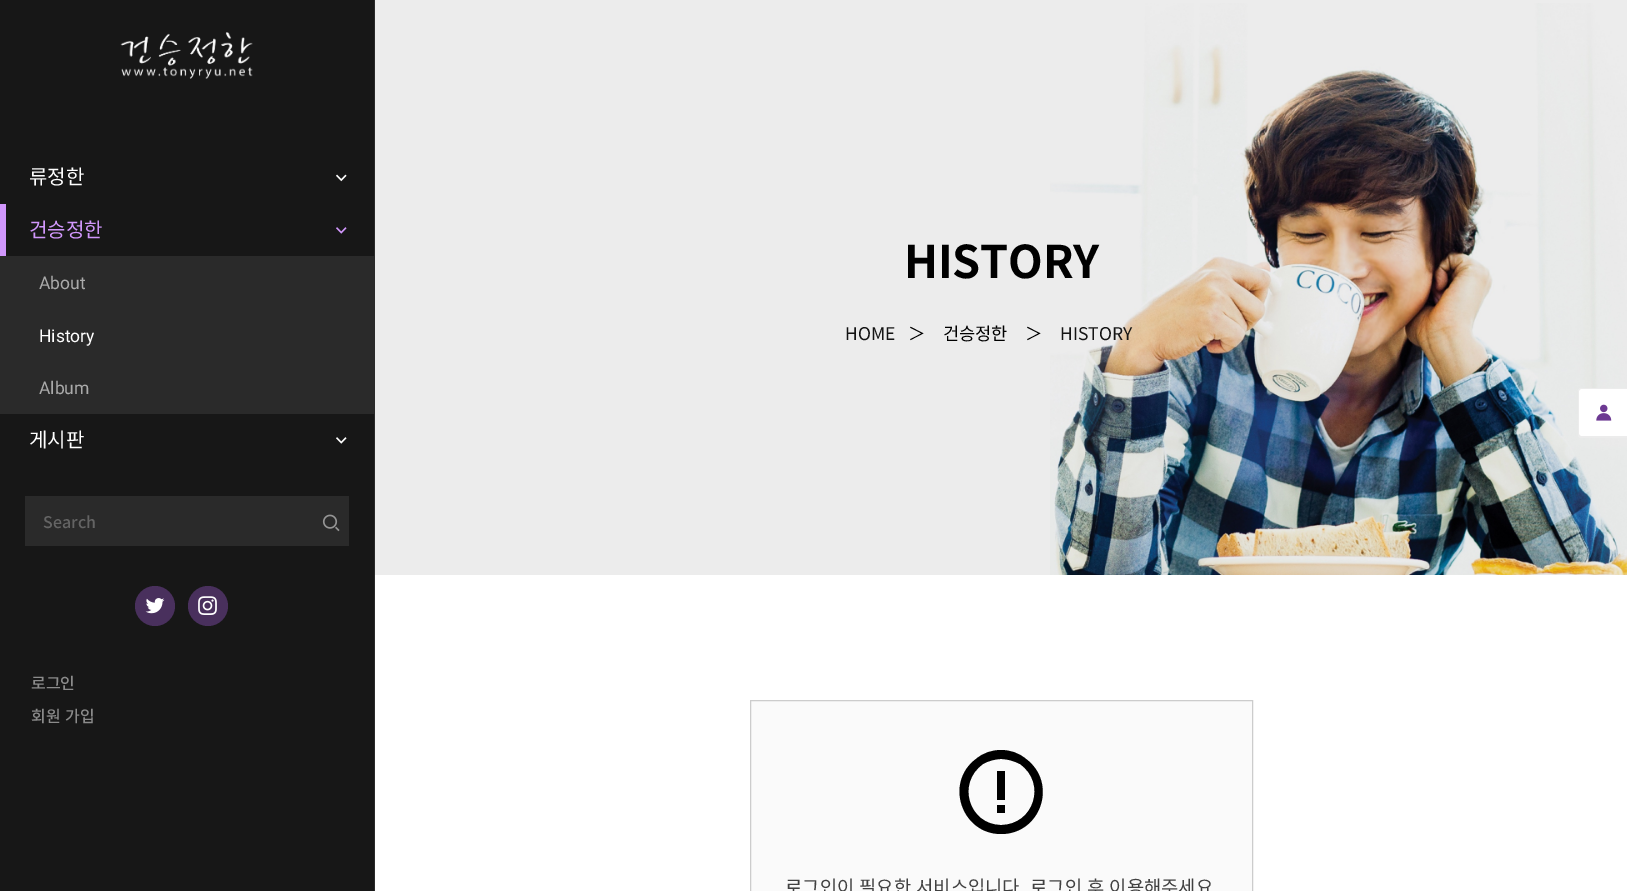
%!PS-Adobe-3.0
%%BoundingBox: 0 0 1627 891
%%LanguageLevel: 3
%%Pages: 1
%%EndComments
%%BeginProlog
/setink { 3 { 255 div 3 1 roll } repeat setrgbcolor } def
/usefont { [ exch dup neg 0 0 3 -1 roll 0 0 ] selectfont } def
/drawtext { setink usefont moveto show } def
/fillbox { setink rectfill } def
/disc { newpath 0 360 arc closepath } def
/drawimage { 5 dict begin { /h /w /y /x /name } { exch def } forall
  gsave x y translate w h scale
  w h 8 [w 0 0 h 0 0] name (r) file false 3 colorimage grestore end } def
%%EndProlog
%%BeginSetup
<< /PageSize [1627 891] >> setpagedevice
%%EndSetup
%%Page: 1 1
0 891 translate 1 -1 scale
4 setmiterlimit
0 0 1627 891 255 255 255 fillbox
0 0 374 891 23 23 23 fillbox
374 0 1 891 42 42 42 fillbox
(assets/img1.rgb) 120 32 133 47 drawimage
(류정한) 29 184 /NotoSansKR-Regular 20 255 255 255 drawtext
(assets/img2.rgb) 336 174 11 8 drawimage
0 204 6 52 209 151 252 fillbox
(건승정한) 29 237 /NotoSansKR-Regular 20 209 151 252 drawtext
(assets/img3.rgb) 336 227 11 7 drawimage
0 256 374 158 42 42 42 fillbox
(About) 39 289 /Roboto-Regular 17.5 170 170 170 drawtext
(History) 39 342 /Roboto-Regular 17.5 255 255 255 drawtext
(Album) 39 394 /Roboto-Regular 17.5 170 170 170 drawtext
(게시판) 29 447 /NotoSansKR-Regular 20 255 255 255 drawtext
(assets/img4.rgb) 336 437 11 7 drawimage
375 0 1252 575 236 236 236 fillbox
(assets/img9.rgb) 1050 3 577 572 drawimage
255 255 255 setink
1582 388 moveto 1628 388 lineto 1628 438 lineto 1582 438 lineto 1580 438 1578 436 1578 434 curveto 1578 392 lineto 1578 390 1580 388 1582 388 curveto closepath fill
236 236 236 setink
1581 388 moveto 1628 388 lineto 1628 438 lineto 1581 438 lineto 1579 438 1578 436 1578 434 curveto 1578 391 lineto 1578 389 1579 388 1581 388 curveto closepath 1581 389 moveto 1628 389 lineto 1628 436 lineto 1581 436 lineto 1580 436 1579 435 1579 434 curveto 1579 391 lineto 1579 390 1580 389 1581 389 curveto closepath eofill
(assets/img5.rgb) 1596 404 16 17 drawimage
25 496 324 50 42 42 42 fillbox
(Search) 43 528 /NotoSansKR-Medium 16 100 100 100 drawtext
(assets/img6.rgb) 322 514 18 18 drawimage
73 48 93 setink
155 606 20 disc fill
(assets/img7.rgb) 145 598 20 16 drawimage
208 606 20 disc fill
(assets/img8.rgb) 198 596 19 19 drawimage
(로그인) 31 689 /NotoSansKR-Medium 16 139 139 139 drawtext
31 722 moveto 1 0 32 (회원 가입) widthshow
/NotoSansKR-Bold 45 usefont
0 0 0 setink
904 278 moveto -0.25 0 (HISTORY) ashow
(HOME) 845 340 /NotoSansKR-Regular 17.5 20 20 20 drawtext
(＞) 908 340 /NotoSansKR-Regular 17.5 0 0 0 drawtext
(건승정한) 943 340 /NotoSansKR-Regular 17.5 0 0 0 drawtext
(＞) 1025 340 /NotoSansKR-Regular 17.5 0 0 0 drawtext
(HISTORY) 1060 340 /NotoSansKR-Regular 17.5 20 20 20 drawtext
250 250 250 setink
750.5 700.5 moveto 1252.5 700.5 lineto 1252.5 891.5 lineto 750.5 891.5 lineto closepath gsave fill grestore
204 204 204 setink
stroke
0 0 0 setink
1001 750 moveto 992 750 983 753 976 759 curveto 944 783 962 834 1001 834 curveto 1041 834 1058 783 1026 759 curveto 1019 753 1010 750 1001 750 curveto closepath 1001 825 moveto 969 825 956 783 983 764 curveto 988 761 995 759 1001 759 curveto 1008 759 1014 761 1020 764 curveto 1047 783 1034 825 1001 825 curveto closepath 997 771 moveto 1005 771 lineto 1005 800 lineto 997 800 lineto closepath 997 805 moveto 1005 805 lineto 1005 813 lineto 997 813 lineto closepath fill
/NotoSansKR-Regular 18.75 usefont
65 65 65 setink
785 894 moveto 1 0 32 (로그인이 필요한 서비스입니다. 로그인 후 이용해주세요) widthshow
showpage
%%EOF
